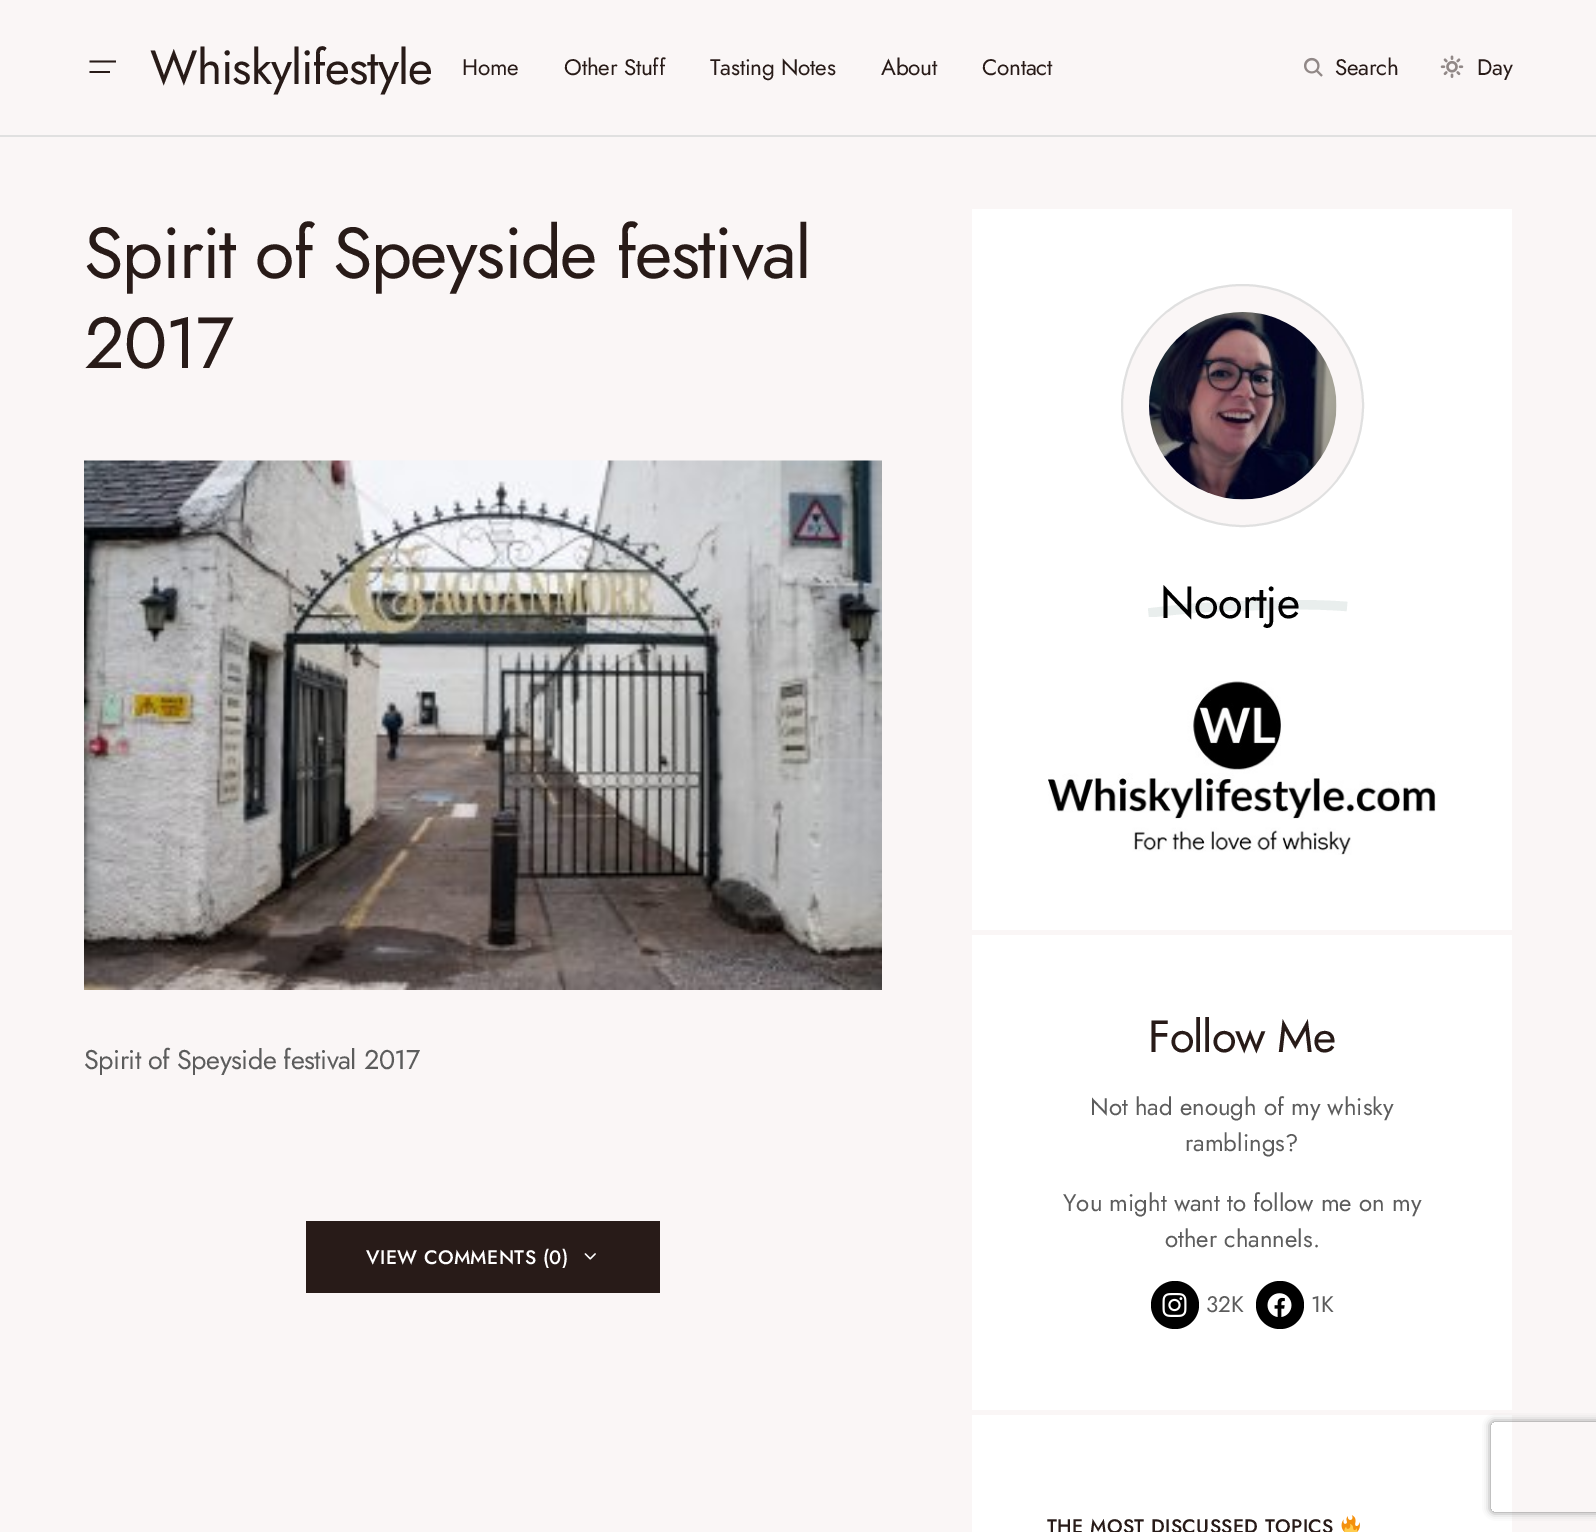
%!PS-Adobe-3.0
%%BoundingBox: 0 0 1596 1532
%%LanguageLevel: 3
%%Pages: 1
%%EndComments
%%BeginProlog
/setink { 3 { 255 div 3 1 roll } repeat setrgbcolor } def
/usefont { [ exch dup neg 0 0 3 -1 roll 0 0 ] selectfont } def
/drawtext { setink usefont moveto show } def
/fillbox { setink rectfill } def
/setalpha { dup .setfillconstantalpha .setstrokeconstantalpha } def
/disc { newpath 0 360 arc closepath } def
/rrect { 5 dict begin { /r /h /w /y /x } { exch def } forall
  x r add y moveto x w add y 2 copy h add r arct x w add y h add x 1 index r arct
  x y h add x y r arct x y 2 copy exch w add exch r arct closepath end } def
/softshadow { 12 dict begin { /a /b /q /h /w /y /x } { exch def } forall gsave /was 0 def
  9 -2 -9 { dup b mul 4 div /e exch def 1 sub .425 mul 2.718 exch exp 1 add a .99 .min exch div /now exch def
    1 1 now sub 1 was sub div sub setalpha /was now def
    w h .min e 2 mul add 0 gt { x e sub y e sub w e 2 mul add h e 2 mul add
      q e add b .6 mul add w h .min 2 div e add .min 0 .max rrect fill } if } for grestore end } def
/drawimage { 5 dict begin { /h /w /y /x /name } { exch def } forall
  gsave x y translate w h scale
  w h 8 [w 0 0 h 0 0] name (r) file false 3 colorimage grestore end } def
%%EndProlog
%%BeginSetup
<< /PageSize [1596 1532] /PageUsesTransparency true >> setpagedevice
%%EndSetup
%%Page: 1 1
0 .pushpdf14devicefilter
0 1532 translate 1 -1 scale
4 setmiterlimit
0 0 1596 1532 250 246 246 fillbox
0 135 1596 2 224 224 224 fillbox
40 27 24 setink
89.5 60.5 moveto 89.5 62.5 lineto 116 62.5 lineto 116 60.5 lineto closepath 89.5 71 moveto 89.5 73 lineto 110 73 lineto 110 71 lineto closepath fill
/Jost-Regular 48 usefont
150 84 moveto -1 0 (Whiskylifestyle) ashow
/Jost-Regular 22.5 usefont
462 75 moveto -0.25 0 (Home) ashow
564 75 moveto -0.25 0 (Other Stuff) ashow
710 75 moveto -0.25 0 (Tasting Notes) ashow
881 75 moveto -0.25 0 (About) ashow
982 75 moveto -0.25 0 (Contact) ashow
(assets/img1.rgb) 1304 57 19 20 drawimage
1335 75 moveto -0.25 0 (Search) ashow
(assets/img2.rgb) 1440 55 24 23 drawimage
1477 75 moveto -0.25 0 (Day) ashow
/Jost-Regular 72 usefont
84 278 moveto -1.45 0 (Spirit of Speyside festival) ashow
84 368 moveto -1.45 0 (2017) ashow
(assets/img3.rgb) 84 460 798 530 drawimage
/Jost-Regular 27 usefont
92 92 92 setink
84 1069 moveto -0.55 0 (Spirit of Speyside festival 2017) ashow
306 1221 354 72 40 27 24 fillbox
/Jost-Medium 19.5 usefont
255 255 255 setink
366 1264 moveto 0.4 0 (VIEW COMMENTS \(0\)) ashow
(assets/img4.rgb) 584 1253 12 7 drawimage
972 209 540 721 255 255 255 fillbox
250 246 246 setink
1242.5 405.5 120.5 disc gsave fill grestore
224 224 224 setink
2 setlinewidth
stroke
(assets/img5.rgb) 1149 312 188 188 drawimage
gsave
1148 600 201 17 rectclip
233 238 237 setink
9.4 setlinewidth
1148.5 613 moveto 1178.5 609.5 1208 606.5 1238.5 606 curveto 1274 605 1311 603.5 1347 606.5 curveto stroke
grestore
/Jost-Regular 45 usefont
0 0 0 setink
1160 618 moveto -0.75 0 (Noortje) ashow
(assets/img6.rgb) 1048 681 388 174 drawimage
972 935 540 475 255 255 255 fillbox
40 27 24 setink
1148 1052 moveto -1 0 (Follow Me) ashow
(Not had enough of my whisky) 1090 1115 /Jost-Regular 24 92 92 92 drawtext
(ramblings?) 1185 1151 /Jost-Regular 24 92 92 92 drawtext
(You might want to follow me on my) 1063 1211 /Jost-Regular 24 92 92 92 drawtext
(other channels.) 1165 1247 /Jost-Regular 24 92 92 92 drawtext
0 0 0 setink
1175 1305 24 disc fill
(assets/img7.rgb) 1162 1293 25 24 drawimage
/Jost-Regular 22.5 usefont
92 92 92 setink
1206 1312 moveto -0.25 0 (32K) ashow
0 0 0 setink
1280 1305 24 disc fill
(assets/img8.rgb) 1267 1293 25 24 drawimage
92 92 92 setink
1311 1312 moveto -0.25 0 (1K) ashow
972 1415 540 117 255 255 255 fillbox
/Jost-Medium 19.5 usefont
40 27 24 setink
1047 1533 moveto 0.4 0 (THE MOST DISCUSSED TOPICS) ashow
(assets/img9.rgb) 1341 1515 19 17 drawimage
gsave
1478 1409 moveto 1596 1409 lineto 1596 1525 lineto 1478 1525 lineto closepath 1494 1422 moveto 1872 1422 lineto 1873.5 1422 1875 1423.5 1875 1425 curveto 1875 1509 lineto 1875 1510.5 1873.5 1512 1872 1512 curveto 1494 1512 lineto 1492.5 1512 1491 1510.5 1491 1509 curveto 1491 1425 lineto 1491 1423.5 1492.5 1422 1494 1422 curveto closepath eoclip newpath
128 128 128 setink
1491 1422 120 90 3 4 1 softshadow
grestore
.poppdf14devicefilter showpage
%%EOF
